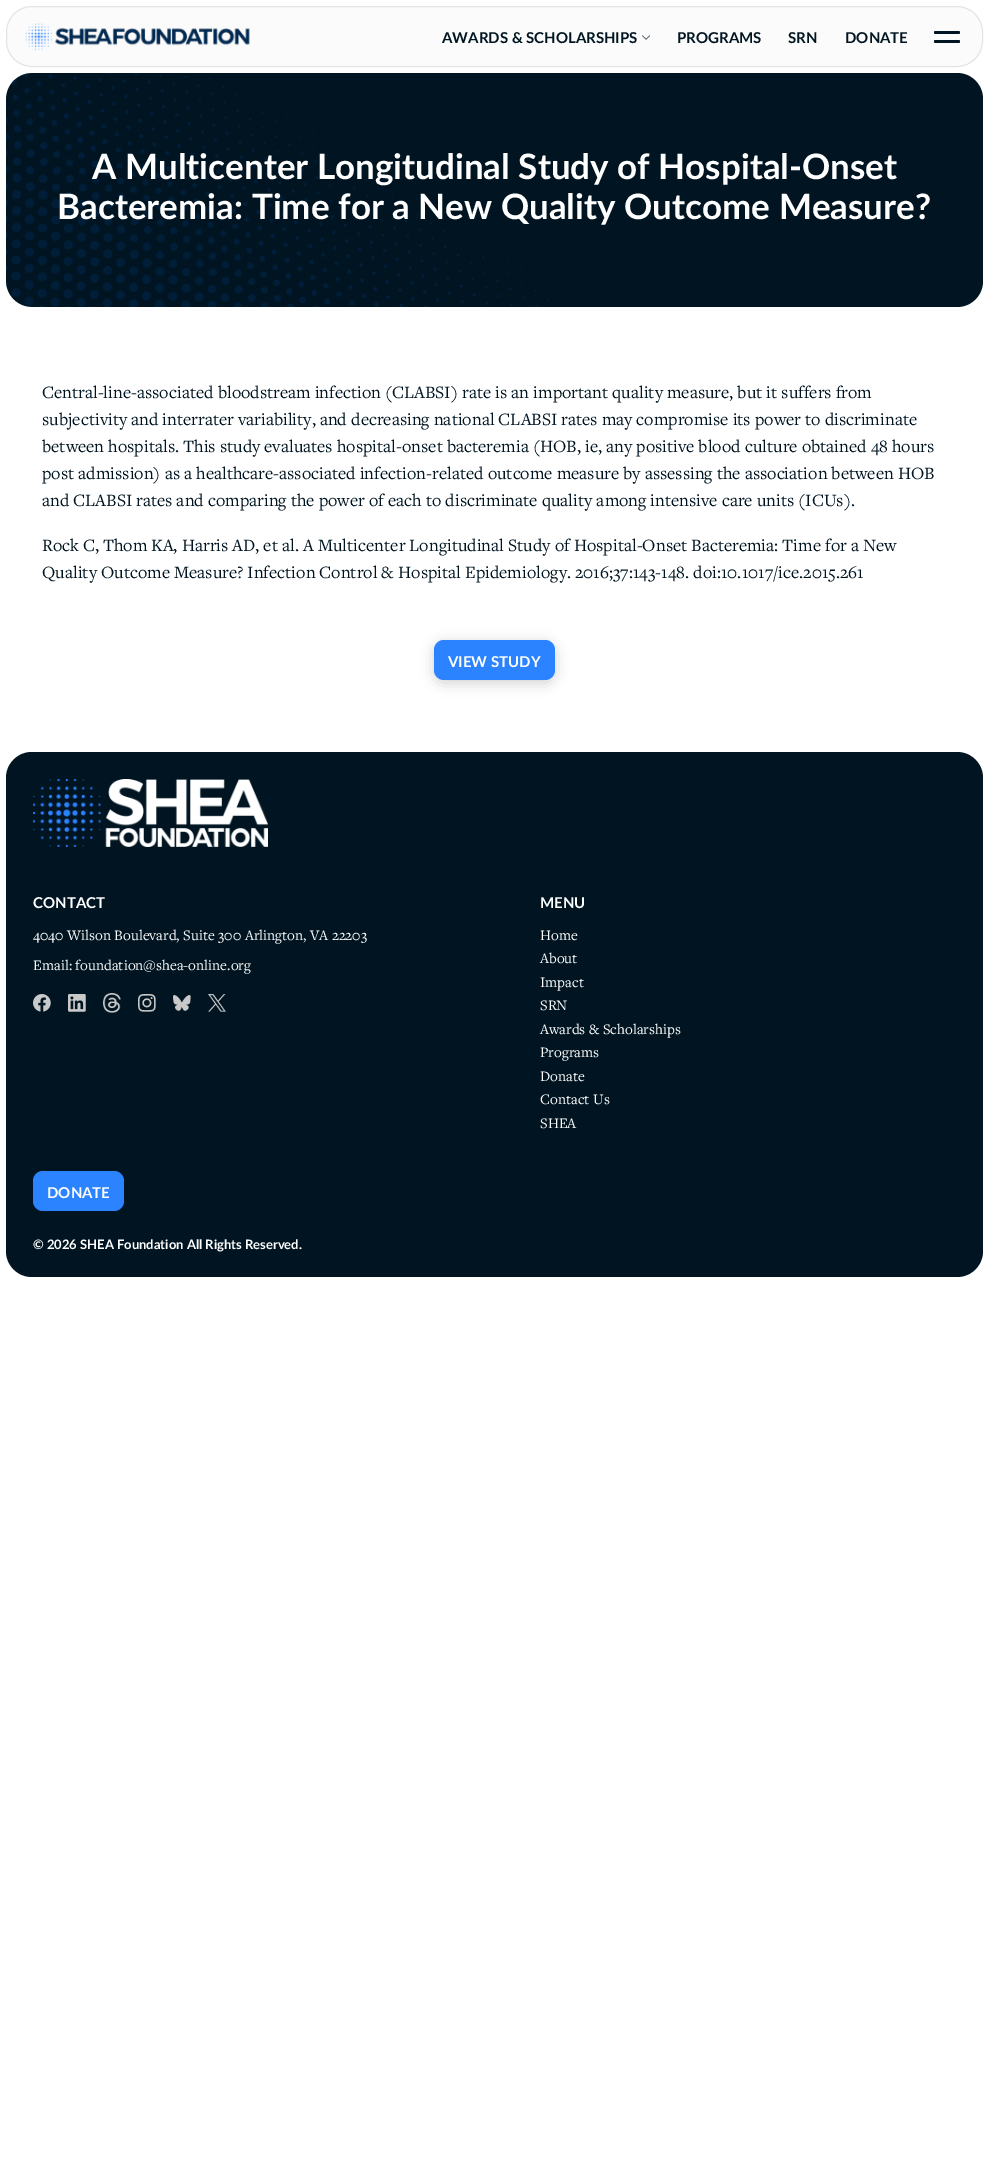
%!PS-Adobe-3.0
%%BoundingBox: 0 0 989 2175
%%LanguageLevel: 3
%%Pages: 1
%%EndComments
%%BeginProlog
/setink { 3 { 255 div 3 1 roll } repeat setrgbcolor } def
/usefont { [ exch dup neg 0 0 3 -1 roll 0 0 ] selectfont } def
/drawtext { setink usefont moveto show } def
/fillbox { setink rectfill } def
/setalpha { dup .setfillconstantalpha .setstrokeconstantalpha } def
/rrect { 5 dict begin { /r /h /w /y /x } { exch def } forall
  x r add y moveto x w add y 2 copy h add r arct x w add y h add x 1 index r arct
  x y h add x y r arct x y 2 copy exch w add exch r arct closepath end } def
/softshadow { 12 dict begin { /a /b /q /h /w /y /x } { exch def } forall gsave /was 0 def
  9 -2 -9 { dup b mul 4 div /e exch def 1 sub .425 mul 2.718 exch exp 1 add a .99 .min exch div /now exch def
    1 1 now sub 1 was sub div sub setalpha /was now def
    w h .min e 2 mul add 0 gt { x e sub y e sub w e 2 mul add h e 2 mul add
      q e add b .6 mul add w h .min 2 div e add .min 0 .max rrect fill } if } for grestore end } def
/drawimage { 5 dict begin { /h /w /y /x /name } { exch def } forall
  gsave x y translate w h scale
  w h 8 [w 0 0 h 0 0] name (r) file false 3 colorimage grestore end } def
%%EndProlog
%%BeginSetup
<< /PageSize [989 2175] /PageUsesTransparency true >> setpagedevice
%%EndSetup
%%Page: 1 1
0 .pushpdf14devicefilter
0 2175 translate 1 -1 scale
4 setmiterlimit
0 0 989 2175 255 255 255 fillbox
251 251 251 setink
6.5 6.5 976 60 25.5 rrect gsave fill grestore
228 228 228 setink
stroke
(assets/img1.rgb) 25 23 225 28 drawimage
(AWARDS & SCHOLARSHIPS) 442 43 /Lato-Bold 15 0 21 33 drawtext
(assets/img2.rgb) 642 35 8 5 drawimage
(PROGRAMS) 677 43 /Lato-Bold 15 0 21 33 drawtext
(SRN) 788 43 /Lato-Bold 15 0 21 33 drawtext
(DONATE) 845 43 /Lato-Bold 15 0 21 33 drawtext
934 31 26 3 1.5 rrect fill
934 40 26 3 1.5 rrect fill
6 73 977 234 26 rrect fill
(assets/img3.rgb) 6 73 592 234 drawimage
(A Multicenter Longitudinal Study of Hospital-Onset) 92 179 /Lato-Bold 35 255 255 255 drawtext
(Bacteremia: Time for a New Quality Outcome Measure?) 57 219 /Lato-Bold 35 255 255 255 drawtext
(Central-line-associated bloodstream infection \(CLABSI\) rate is an important quality measure, but it suffers from) 42 398 /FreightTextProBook-Regular 18 0 21 33 drawtext
(subjectivity and interrater variability, and decreasing national CLABSI rates may compromise its power to discriminate) 42 425 /FreightTextProBook-Regular 18 0 21 33 drawtext
(between hospitals. This study evaluates hospital-onset bacteremia \(HOB, ie, any positive blood culture obtained 48 hours) 42 452 /FreightTextProBook-Regular 18 0 21 33 drawtext
(post admission\) as a healthcare-associated infection-related outcome measure by assessing the association between HOB) 42 479 /FreightTextProBook-Regular 18 0 21 33 drawtext
(and CLABSI rates and comparing the power of each to discriminate quality among intensive care units \(ICUs\).) 42 506 /FreightTextProBook-Regular 18 0 21 33 drawtext
(Rock C, Thom KA, Harris AD, et al. A Multicenter Longitudinal Study of Hospital-Onset Bacteremia: Time for a New) 42 551 /FreightTextProBook-Regular 18 0 21 33 drawtext
(Quality Outcome Measure? Infection Control & Hospital Epidemiology. 2016;37:143-148. doi:10.1017/ice.2015.261) 42 578 /FreightTextProBook-Regular 18 0 21 33 drawtext
0 0 0 setink
434 643 121 40 10 7 0.18 softshadow
43 131 255 setink
434 640 121 40 10 rrect fill
(VIEW STUDY) 448 667 /Lato-Bold 15 255 255 255 drawtext
0 21 33 setink
6 752 977 525 26 rrect fill
(assets/img4.rgb) 33 779 235 68 drawimage
(CONTACT) 33 908 /Lato-Bold 15 255 255 255 drawtext
(4040 Wilson Boulevard, Suite 300 Arlington, VA 22203) 33 940 /FreightTextProBook-Regular 15 255 255 255 drawtext
(Email: foundation@shea-online.org) 33 970 /FreightTextProBook-Regular 15 255 255 255 drawtext
(assets/img5.rgb) 33 994 18 18 drawimage
(assets/img6.rgb) 68 994 18 18 drawimage
(assets/img7.rgb) 103 993 18 20 drawimage
(assets/img8.rgb) 138 994 18 18 drawimage
(assets/img9.rgb) 173 995 18 16 drawimage
(assets/img10.rgb) 208 994 18 18 drawimage
(MENU) 540 908 /Lato-Bold 15 255 255 255 drawtext
(Home) 540 940 /FreightTextProBook-Regular 15 255 255 255 drawtext
(About) 540 963 /FreightTextProBook-Regular 15 255 255 255 drawtext
(Impact) 540 987 /FreightTextProBook-Regular 15 255 255 255 drawtext
(SRN) 540 1010 /FreightTextProBook-Regular 15 255 255 255 drawtext
(Awards & Scholarships) 540 1034 /FreightTextProBook-Regular 15 255 255 255 drawtext
(Programs) 540 1057 /FreightTextProBook-Regular 15 255 255 255 drawtext
(Donate) 540 1081 /FreightTextProBook-Regular 15 255 255 255 drawtext
(Contact Us) 540 1104 /FreightTextProBook-Regular 15 255 255 255 drawtext
(SHEA) 540 1128 /FreightTextProBook-Regular 15 255 255 255 drawtext
43 131 255 setink
33 1171 91 40 10 rrect fill
(DONATE) 47 1198 /Lato-Bold 15 255 255 255 drawtext
(© 2026 SHEA Foundation All Rights Reserved.) 33 1249 /Lato-Bold 13 255 255 255 drawtext
.poppdf14devicefilter showpage
%%EOF
